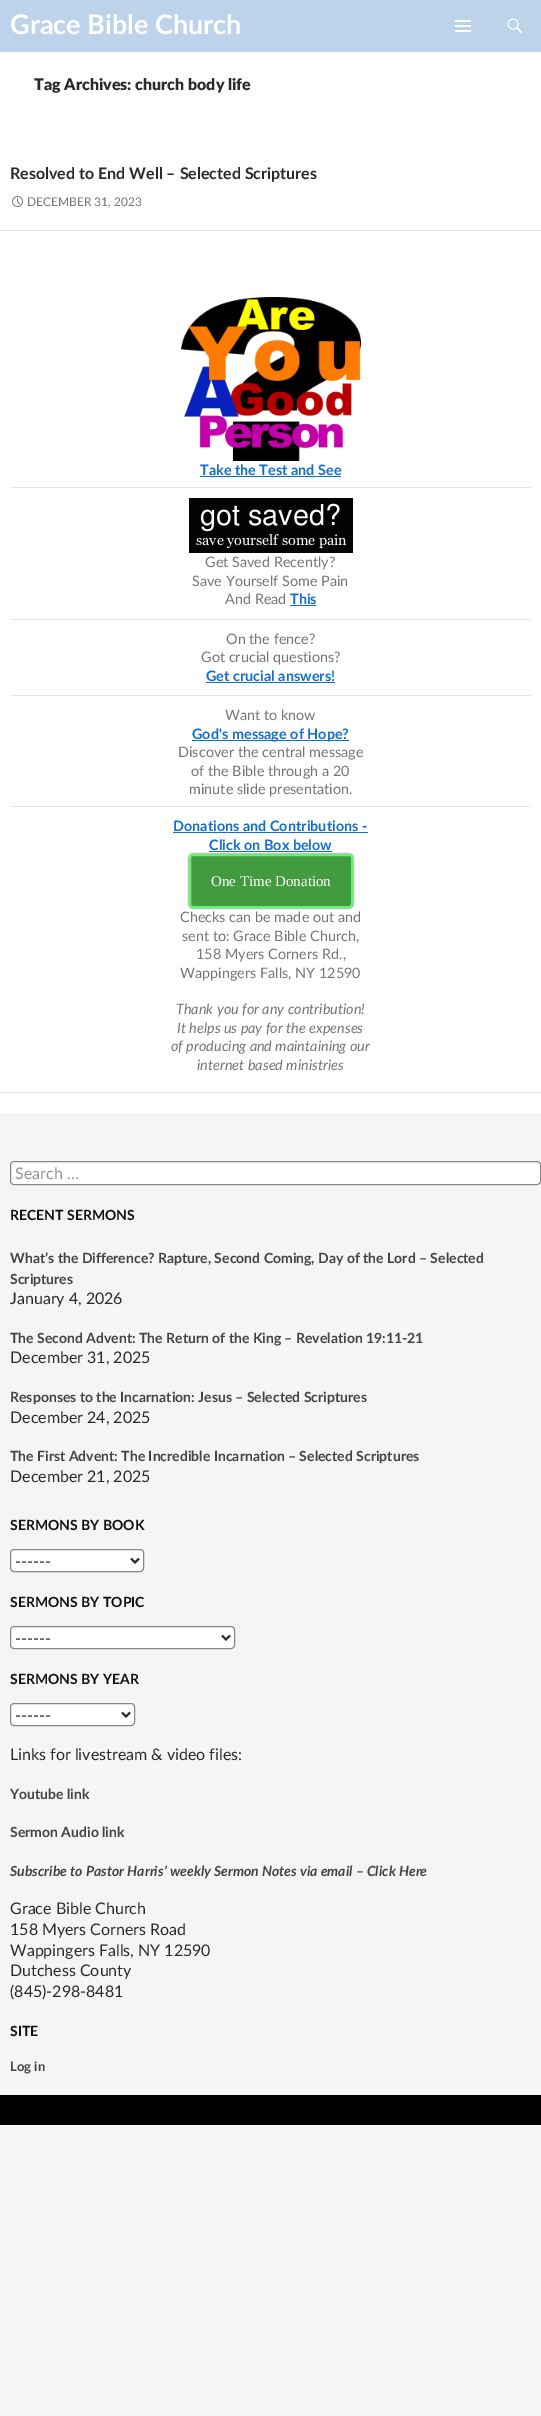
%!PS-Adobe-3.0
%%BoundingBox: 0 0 541 2416
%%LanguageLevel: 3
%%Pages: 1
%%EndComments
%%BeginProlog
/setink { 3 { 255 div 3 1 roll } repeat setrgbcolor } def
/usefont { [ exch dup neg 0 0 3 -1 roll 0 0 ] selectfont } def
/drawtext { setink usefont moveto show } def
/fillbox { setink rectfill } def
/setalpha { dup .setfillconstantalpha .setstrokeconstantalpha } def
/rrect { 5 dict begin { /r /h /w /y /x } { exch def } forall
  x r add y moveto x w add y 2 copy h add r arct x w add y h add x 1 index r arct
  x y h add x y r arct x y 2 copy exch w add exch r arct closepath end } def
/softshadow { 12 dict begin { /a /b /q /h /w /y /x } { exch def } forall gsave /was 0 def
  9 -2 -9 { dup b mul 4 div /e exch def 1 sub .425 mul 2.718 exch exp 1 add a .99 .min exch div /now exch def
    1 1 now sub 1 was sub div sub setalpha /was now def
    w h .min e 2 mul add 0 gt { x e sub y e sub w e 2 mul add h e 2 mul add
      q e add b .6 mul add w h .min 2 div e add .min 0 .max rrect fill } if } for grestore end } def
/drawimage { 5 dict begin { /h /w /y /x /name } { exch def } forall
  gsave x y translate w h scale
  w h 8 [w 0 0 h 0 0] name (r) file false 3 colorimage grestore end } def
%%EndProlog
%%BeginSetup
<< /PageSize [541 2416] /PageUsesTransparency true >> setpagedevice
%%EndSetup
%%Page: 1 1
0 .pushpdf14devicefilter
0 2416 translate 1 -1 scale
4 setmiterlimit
0 0 541 2416 245 245 245 fillbox
0 52 541 1061 255 255 255 fillbox
0 0 541 52 189 211 234 fillbox
(Grace Bible Church) 10 34 /Lato-Bold 27 255 255 255 drawtext
(assets/img1.rgb) 455 20 16 12 drawimage
(assets/img2.rgb) 507 18 16 16 drawimage
(Tag Archives: church body life) 34 90 /Lato-Black 16 43 43 43 drawtext
(Resolved to End Well – Selected Scriptures) 10 179 /Lato-Bold 16 43 43 43 drawtext
(assets/img3.rgb) 12 196 11 11 drawimage
(DECEMBER 31, 2023) 27 206 /Lato-Regular 12 118 118 118 drawtext
0 230 541 1 230 230 230 fillbox
0 1092 541 1 230 230 230 fillbox
(assets/img4.rgb) 181 297 180 164 drawimage
(Take the Test and See) 200 475 /Lato-Bold 14.4 20 110 204 drawtext
200 476 141 1 20 110 204 fillbox
10 487 521 1 230 230 230 fillbox
(assets/img5.rgb) 189 498 164 55 drawimage
(Get Saved Recently?) 205 567 /Lato-Regular 14.4 118 118 118 drawtext
(Save Yourself Some Pain) 192 586 /Lato-Regular 14.4 118 118 118 drawtext
(And Read) 225 604 /Lato-Regular 14.4 118 118 118 drawtext
(This) 290 604 /Lato-Bold 14.4 20 110 204 drawtext
290 605 26 1 20 110 204 fillbox
10 619 521 1 230 230 230 fillbox
(On the fence?) 226 644 /Lato-Regular 14.4 118 118 118 drawtext
(Got crucial questions?) 201 662 /Lato-Regular 14.4 118 118 118 drawtext
(Get crucial answers!) 206 681 /Lato-Bold 14.4 20 110 204 drawtext
206 682 129 1 20 110 204 fillbox
10 695 521 1 230 230 230 fillbox
(Want to know) 225 720 /Lato-Regular 14.4 118 118 118 drawtext
192 740 157 1 20 110 204 fillbox
(God's message of Hope?) 192 739 /Lato-Bold 14.4 20 110 204 drawtext
(Discover the central message) 178 757 /Lato-Regular 14.4 118 118 118 drawtext
(of the Bible through a 20) 191 776 /Lato-Regular 14.4 118 118 118 drawtext
(minute slide presentation.) 189 794 /Lato-Regular 14.4 118 118 118 drawtext
10 806 521 1 230 230 230 fillbox
(Donations and Contributions -) 173 831 /Lato-Bold 14.4 20 110 204 drawtext
173 832 195 1 20 110 204 fillbox
(Click on Box below) 209 850 /Lato-Bold 14.4 20 110 204 drawtext
209 851 123 1 20 110 204 fillbox
51 51 51 setink
189 854 164 54 4 1 1 softshadow
66 155 62 setink
190 855 162 52 3 rrect gsave fill grestore
97 244 110 setink
2 setlinewidth
stroke
(One Time Donation) 211 886 /LiberationSerif-Regular 15 255 255 255 drawtext
(Checks can be made out and) 180 922 /Lato-Regular 14.4 118 118 118 drawtext
(sent to: Grace Bible Church,) 182 941 /Lato-Regular 14.4 118 118 118 drawtext
(158 Myers Corners Rd.,) 196 959 /Lato-Regular 14.4 118 118 118 drawtext
(Wappingers Falls, NY 12590) 180 978 /Lato-Regular 14.4 118 118 118 drawtext
(Thank you for any contribution!) 176 1014 /Lato-Italic 14.4 118 118 118 drawtext
(It helps us pay for the expenses) 177 1033 /Lato-Italic 14.4 118 118 118 drawtext
(of producing and maintaining our) 171 1051 /Lato-Italic 14.4 118 118 118 drawtext
(internet based ministries) 197 1070 /Lato-Italic 14.4 118 118 118 drawtext
255 255 255 setink
10.5 1161.5 530 23 3.5 rrect gsave fill grestore
136 136 136 setink
1 setlinewidth
stroke
(Search …) 15 1179 /Lato-Regular 16 147 147 147 drawtext
(RECENT SERMONS) 10 1220 /Lato-Bold 14 17 17 17 drawtext
(What’s the Difference? Rapture, Second Coming, Day of the Lord – Selected) 10 1263 /Lato-Bold 14 68 68 68 drawtext
(Scriptures) 10 1284 /Lato-Bold 14 68 68 68 drawtext
(January 4, 2026) 10 1304 /Lato-Regular 16 43 43 43 drawtext
(The Second Advent: The Return of the King – Revelation 19:11-21) 10 1343 /Lato-Bold 14 68 68 68 drawtext
(December 31, 2025) 10 1363 /Lato-Regular 16 43 43 43 drawtext
(Responses to the Incarnation: Jesus – Selected Scriptures) 10 1402 /Lato-Bold 14 68 68 68 drawtext
(December 24, 2025) 10 1423 /Lato-Regular 16 43 43 43 drawtext
(The First Advent: The Incredible Incarnation – Selected Scriptures) 10 1461 /Lato-Bold 14 68 68 68 drawtext
(December 21, 2025) 10 1482 /Lato-Regular 16 43 43 43 drawtext
(SERMONS BY BOOK) 10 1530 /Lato-Bold 14 17 17 17 drawtext
255 255 255 setink
10.5 1549.5 133 22 3.5 rrect gsave fill grestore
136 136 136 setink
stroke
43 43 43 setink
2 setlinewidth
131 1558.5 moveto 135 1562.5 lineto 139 1558.5 lineto stroke
(------) 15 1567 /Lato-Regular 16 43 43 43 drawtext
(SERMONS BY TOPIC) 10 1607 /Lato-Bold 14 17 17 17 drawtext
255 255 255 setink
10.5 1626.5 224 22 3.5 rrect gsave fill grestore
136 136 136 setink
1 setlinewidth
stroke
43 43 43 setink
2 setlinewidth
222 1635.5 moveto 226 1639.5 lineto 230 1635.5 lineto stroke
(------) 15 1644 /Lato-Regular 16 43 43 43 drawtext
(SERMONS BY YEAR) 10 1684 /Lato-Bold 14 17 17 17 drawtext
255 255 255 setink
10.5 1703.5 124 22 3.5 rrect gsave fill grestore
136 136 136 setink
1 setlinewidth
stroke
43 43 43 setink
2 setlinewidth
122 1712.5 moveto 126 1716.5 lineto 130 1712.5 lineto stroke
(------) 15 1721 /Lato-Regular 16 43 43 43 drawtext
(Links for livestream & video files:) 10 1760 /Lato-Regular 16 43 43 43 drawtext
(Youtube link) 10 1799 /Lato-Bold 14 68 68 68 drawtext
(Sermon Audio link) 10 1837 /Lato-Bold 14 68 68 68 drawtext
(Subscribe to Pastor Harris’ weekly Sermon Notes via email – Click Here) 10 1876 /Lato-BoldItalic 14 68 68 68 drawtext
(Grace Bible Church) 10 1914 /Lato-Regular 16 43 43 43 drawtext
(158 Myers Corners Road) 10 1935 /Lato-Regular 16 43 43 43 drawtext
(Wappingers Falls, NY 12590) 10 1956 /Lato-Regular 16 43 43 43 drawtext
(Dutchess County) 10 1976 /Lato-Regular 16 43 43 43 drawtext
(\(845\)-298-8481) 10 1997 /Lato-Regular 16 43 43 43 drawtext
(SITE) 10 2036 /Lato-Bold 14 17 17 17 drawtext
(Log in) 10 2071 /Lato-Bold 13 68 68 68 drawtext
0 2095 541 30 0 0 0 fillbox
.poppdf14devicefilter showpage
%%EOF
